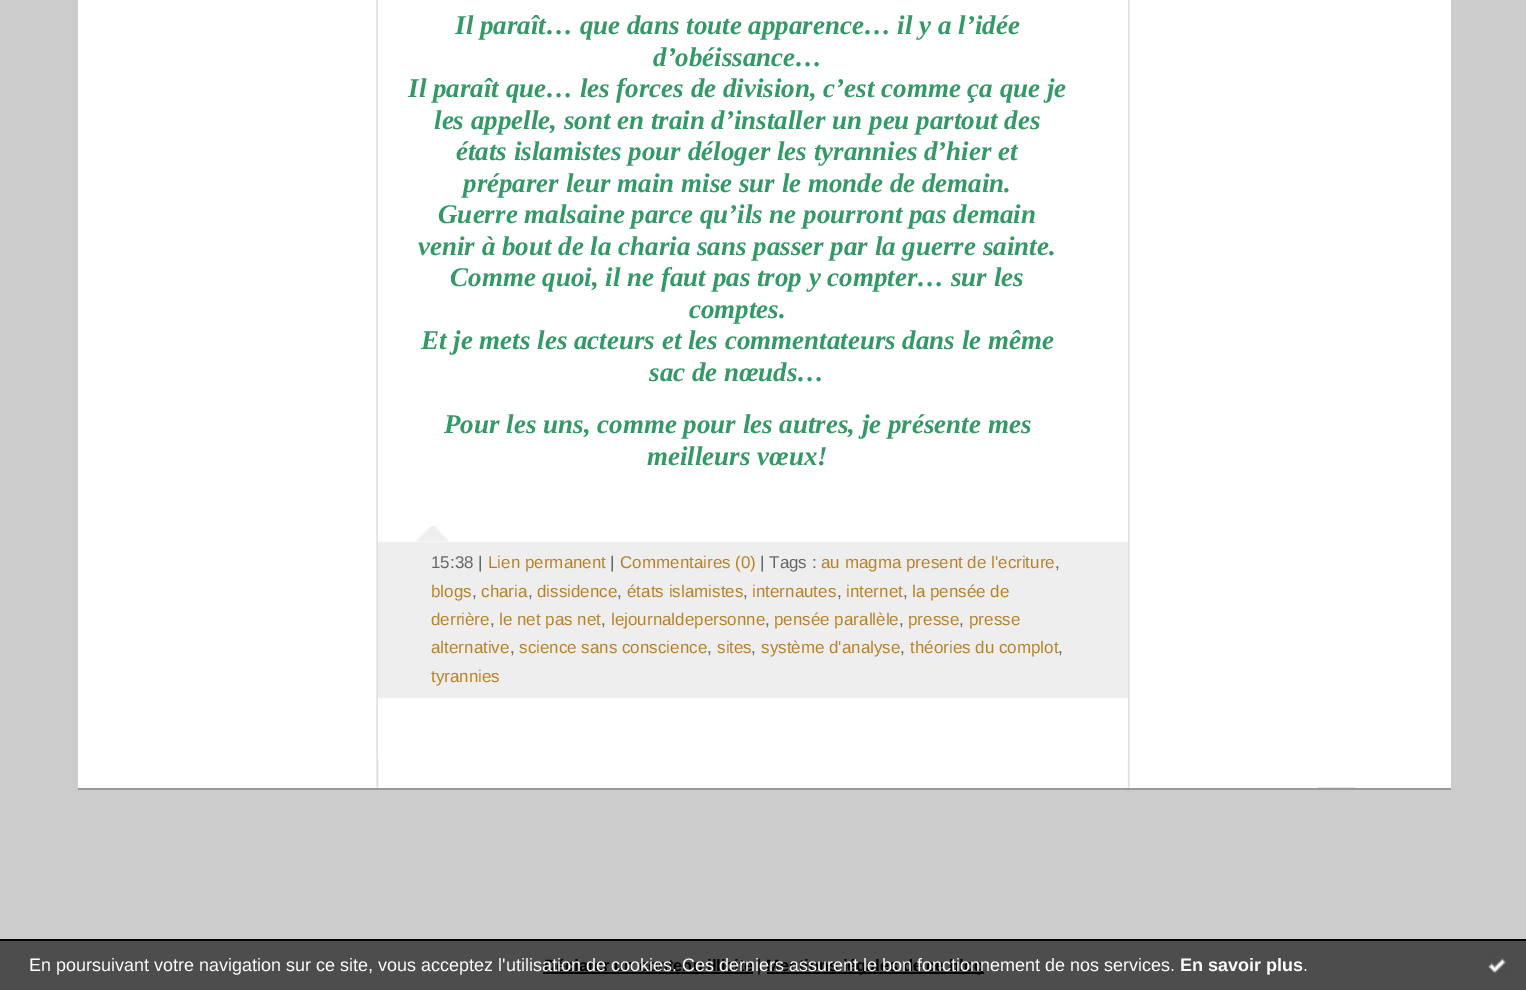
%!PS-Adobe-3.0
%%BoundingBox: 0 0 1526 990
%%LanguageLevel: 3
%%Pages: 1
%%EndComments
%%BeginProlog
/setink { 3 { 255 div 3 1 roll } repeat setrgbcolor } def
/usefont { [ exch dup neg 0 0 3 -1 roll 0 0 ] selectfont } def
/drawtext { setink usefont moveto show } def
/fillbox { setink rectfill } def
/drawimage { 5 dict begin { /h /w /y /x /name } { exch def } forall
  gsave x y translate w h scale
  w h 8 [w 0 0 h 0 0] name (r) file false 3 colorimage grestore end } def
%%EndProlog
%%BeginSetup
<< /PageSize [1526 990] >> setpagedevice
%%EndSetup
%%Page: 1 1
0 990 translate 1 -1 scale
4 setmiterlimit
0 0 1526 990 204 204 204 fillbox
78 0 1373 788 255 255 255 fillbox
(assets/img1.rgb) 1317 787 39 1 drawimage
78 788 1373 2 153 153 153 fillbox
(assets/img2.rgb) 376 0 980 788 drawimage
378 0 750 758 255 255 255 fillbox
(Il paraît… que dans toute apparence… il y a l’idée) 455 34 /LiberationSerif-BoldItalic 27 51 153 102 drawtext
(d’obéissance…) 653 66 /LiberationSerif-BoldItalic 27 51 153 102 drawtext
(Il paraît que… les forces de division, c’est comme ça que je) 408 97 /LiberationSerif-BoldItalic 27 51 153 102 drawtext
(les appelle, sont en train d’installer un peu partout des) 434 129 /LiberationSerif-BoldItalic 27 51 153 102 drawtext
(états islamistes pour déloger les tyrannies d’hier et) 456 160 /LiberationSerif-BoldItalic 27 51 153 102 drawtext
(préparer leur main mise sur le monde de demain.) 463 192 /LiberationSerif-BoldItalic 27 51 153 102 drawtext
(Guerre malsaine parce qu’ils ne pourront pas demain) 438 223 /LiberationSerif-BoldItalic 27 51 153 102 drawtext
(venir à bout de la charia sans passer par la guerre sainte.) 418 255 /LiberationSerif-BoldItalic 27 51 153 102 drawtext
(Comme quoi, il ne faut pas trop y compter… sur les) 450 286 /LiberationSerif-BoldItalic 27 51 153 102 drawtext
(comptes.) 689 318 /LiberationSerif-BoldItalic 27 51 153 102 drawtext
(Et je mets les acteurs et les commentateurs dans le même) 421 349 /LiberationSerif-BoldItalic 27 51 153 102 drawtext
(sac de nœuds…) 649 381 /LiberationSerif-BoldItalic 27 51 153 102 drawtext
(Pour les uns, comme pour les autres, je présente mes) 444 433 /LiberationSerif-BoldItalic 27 51 153 102 drawtext
(meilleurs vœux!) 647 465 /LiberationSerif-BoldItalic 27 51 153 102 drawtext
(assets/img3.rgb) 416 526 33 16 drawimage
378 542 750 156 238 238 238 fillbox
(15:38 |) 431 568 /LiberationSans-Regular 17 102 102 102 drawtext
(Lien permanent) 488 568 /LiberationSans-Regular 17 185 129 37 drawtext
(|) 610 568 /LiberationSans-Regular 17 102 102 102 drawtext
(Commentaires \(0\)) 620 568 /LiberationSans-Regular 17 185 129 37 drawtext
(| Tags :) 760 568 /LiberationSans-Regular 17 102 102 102 drawtext
(au magma present de l'ecriture) 821 568 /LiberationSans-Regular 17 185 129 37 drawtext
(,) 1055 568 /LiberationSans-Regular 17 102 102 102 drawtext
(blogs) 431 597 /LiberationSans-Regular 17 185 129 37 drawtext
(,) 472 597 /LiberationSans-Regular 17 102 102 102 drawtext
(charia) 481 597 /LiberationSans-Regular 17 185 129 37 drawtext
(,) 528 597 /LiberationSans-Regular 17 102 102 102 drawtext
(dissidence) 537 597 /LiberationSans-Regular 17 185 129 37 drawtext
(,) 617 597 /LiberationSans-Regular 17 102 102 102 drawtext
(états islamistes) 627 597 /LiberationSans-Regular 17 185 129 37 drawtext
(,) 743 597 /LiberationSans-Regular 17 102 102 102 drawtext
(internautes) 752 597 /LiberationSans-Regular 17 185 129 37 drawtext
(,) 837 597 /LiberationSans-Regular 17 102 102 102 drawtext
(internet) 846 597 /LiberationSans-Regular 17 185 129 37 drawtext
(,) 903 597 /LiberationSans-Regular 17 102 102 102 drawtext
(la pensée de) 912 597 /LiberationSans-Regular 17 185 129 37 drawtext
(derrière) 431 625 /LiberationSans-Regular 17 185 129 37 drawtext
(,) 490 625 /LiberationSans-Regular 17 102 102 102 drawtext
(le net pas net) 499 625 /LiberationSans-Regular 17 185 129 37 drawtext
(,) 601 625 /LiberationSans-Regular 17 102 102 102 drawtext
(lejournaldepersonne) 611 625 /LiberationSans-Regular 17 185 129 37 drawtext
(,) 765 625 /LiberationSans-Regular 17 102 102 102 drawtext
(pensée parallèle) 774 625 /LiberationSans-Regular 17 185 129 37 drawtext
(,) 899 625 /LiberationSans-Regular 17 102 102 102 drawtext
(presse) 908 625 /LiberationSans-Regular 17 185 129 37 drawtext
(,) 959 625 /LiberationSans-Regular 17 102 102 102 drawtext
(presse) 969 625 /LiberationSans-Regular 17 185 129 37 drawtext
(alternative) 431 653 /LiberationSans-Regular 17 185 129 37 drawtext
(,) 510 653 /LiberationSans-Regular 17 102 102 102 drawtext
(science sans conscience) 519 653 /LiberationSans-Regular 17 185 129 37 drawtext
(,) 707 653 /LiberationSans-Regular 17 102 102 102 drawtext
(sites) 717 653 /LiberationSans-Regular 17 185 129 37 drawtext
(,) 751 653 /LiberationSans-Regular 17 102 102 102 drawtext
(système d'analyse) 761 653 /LiberationSans-Regular 17 185 129 37 drawtext
(,) 900 653 /LiberationSans-Regular 17 102 102 102 drawtext
(théories du complot) 910 653 /LiberationSans-Regular 17 185 129 37 drawtext
(,) 1058 653 /LiberationSans-Regular 17 102 102 102 drawtext
(tyrannies) 431 682 /LiberationSans-Regular 17 185 129 37 drawtext
0 941 1526 49 77 77 77 fillbox
(Déclarer un contenu illicite) 544 971 /LiberationSans-Bold 16.4 0 0 0 drawtext
543 972 210 2 0 0 0 fillbox
(|) 757 971 /LiberationSans-Regular 16.4 0 0 0 drawtext
767 972 217 2 0 0 0 fillbox
(Mentions légales de ce blog) 766 971 /LiberationSans-Bold 16.4 0 0 0 drawtext
(En poursuivant votre navigation sur ce site, vous acceptez l'utilisation de cookies. Ces derniers assurent le bon fonctionnement de nos services.) 29 971 /LiberationSans-Regular 18 255 255 255 drawtext
(En savoir plus) 1180 971 /LiberationSans-Bold 18 255 255 255 drawtext
(.) 1303 971 /LiberationSans-Regular 18 255 255 255 drawtext
(assets/img4.rgb) 1488 958 19 15 drawimage
0 939 1526 2 0 0 0 fillbox
showpage
%%EOF
